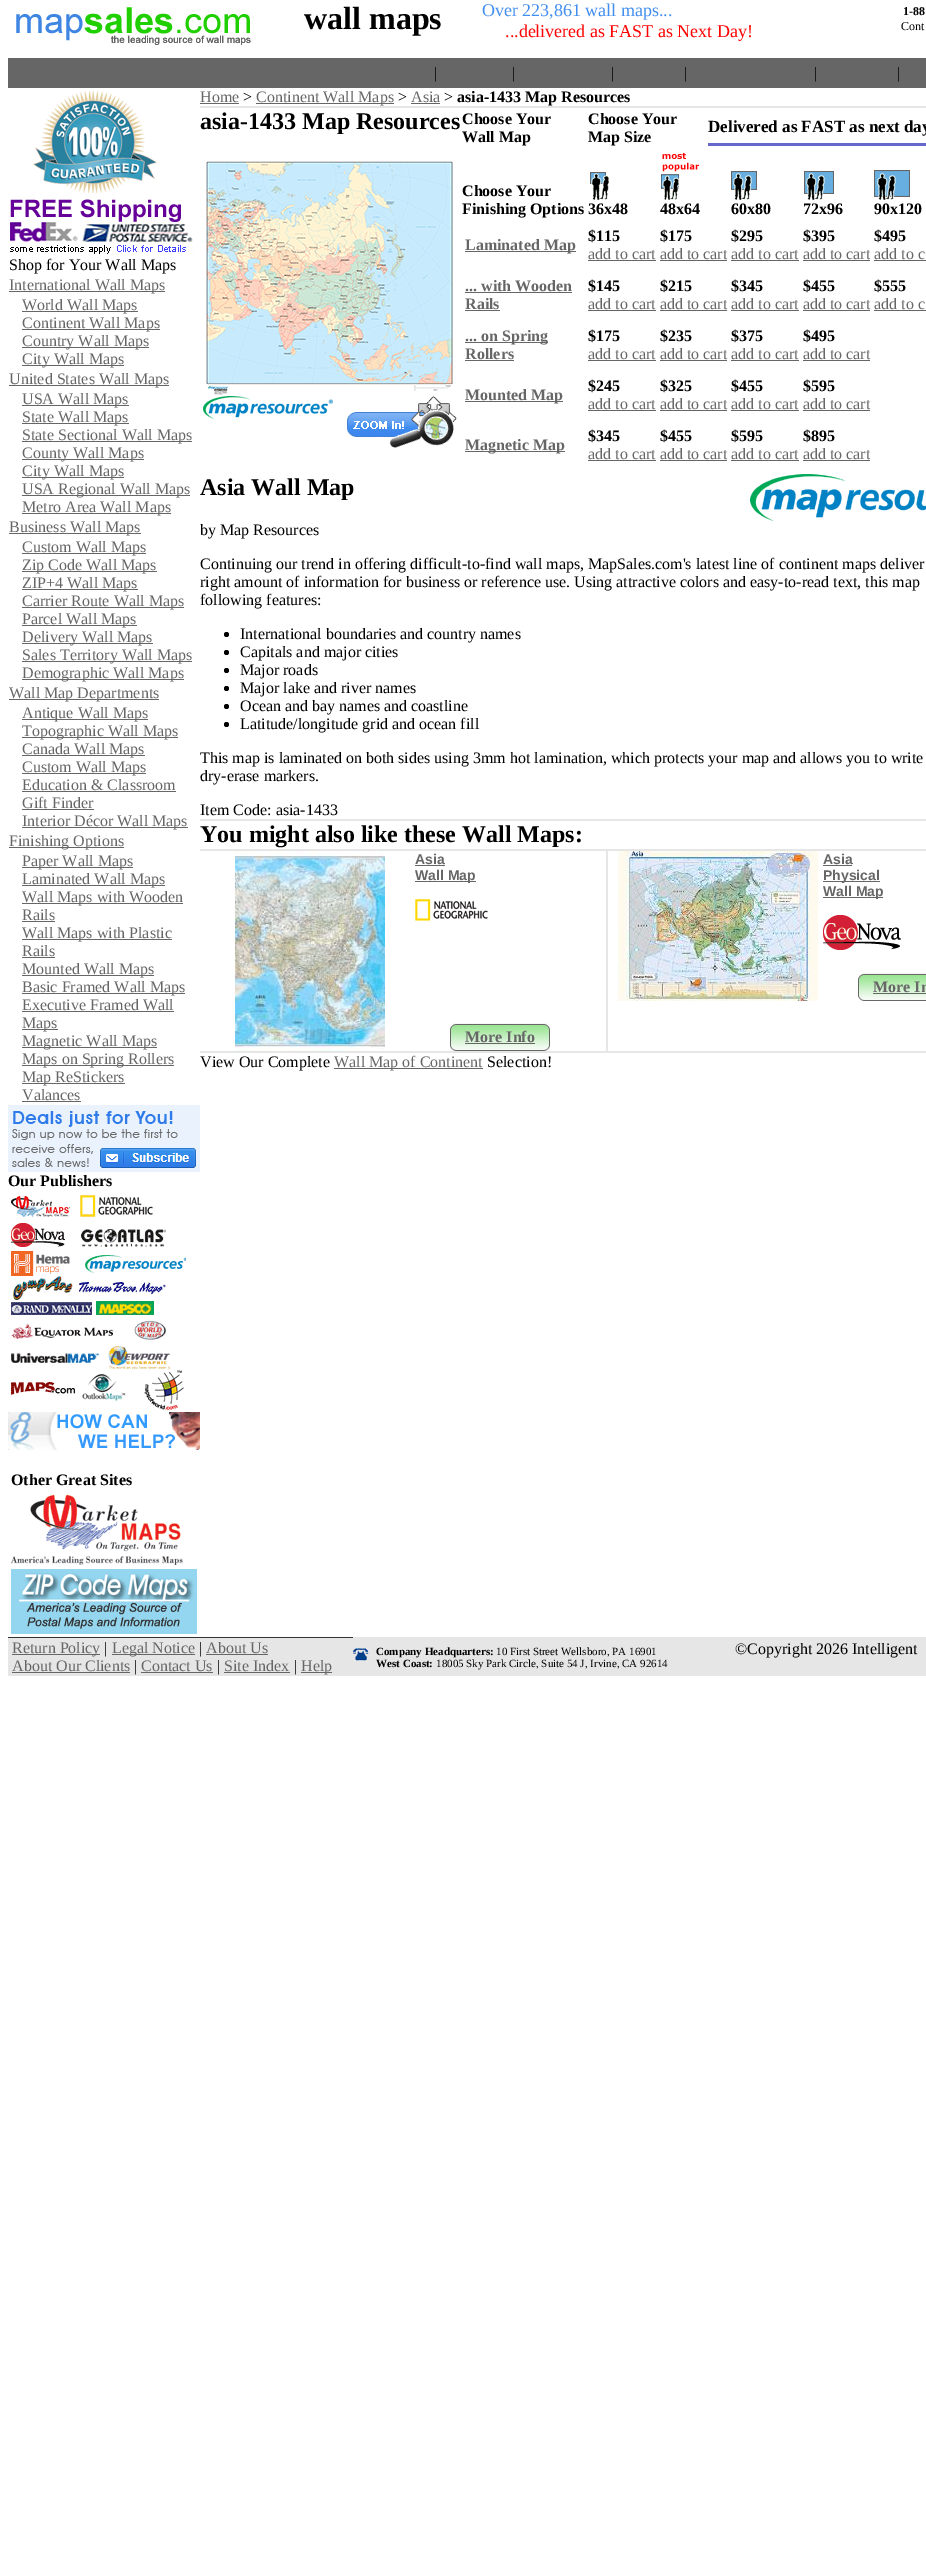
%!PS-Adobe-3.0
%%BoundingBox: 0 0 926 2559
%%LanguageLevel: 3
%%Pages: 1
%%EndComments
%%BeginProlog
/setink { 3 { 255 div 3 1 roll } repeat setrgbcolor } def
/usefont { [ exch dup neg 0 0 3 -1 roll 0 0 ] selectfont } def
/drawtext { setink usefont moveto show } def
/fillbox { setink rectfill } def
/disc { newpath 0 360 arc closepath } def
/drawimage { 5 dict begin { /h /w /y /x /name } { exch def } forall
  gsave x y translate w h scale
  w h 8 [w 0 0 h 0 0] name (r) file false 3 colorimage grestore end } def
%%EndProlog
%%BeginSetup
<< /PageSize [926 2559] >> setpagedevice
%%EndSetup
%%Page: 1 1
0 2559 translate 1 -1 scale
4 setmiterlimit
0 0 926 2559 255 255 255 fillbox
(assets/img1.rgb) 16 7 235 38 drawimage
(wall maps) 304 29 /LiberationSerif-Bold 32 0 0 0 drawtext
(Over 223,861 wall maps...) 482 16 /LiberationSerif-Regular 18 66 142 239 drawtext
(...delivered as FAST as Next Day!) 505 37 /LiberationSerif-Regular 18 255 0 0 drawtext
(1-88) 903 15 /LiberationSerif-Bold 12 0 0 0 drawtext
(Cont) 901 30 /LiberationSerif-Regular 12 0 0 0 drawtext
8 58 918 30 102 102 102 fillbox
(|) 434 78 /LiberationSerif-Regular 16 0 0 0 drawtext
(|) 512 78 /LiberationSerif-Regular 16 0 0 0 drawtext
(|) 611 78 /LiberationSerif-Regular 16 0 0 0 drawtext
(|) 684 78 /LiberationSerif-Regular 16 0 0 0 drawtext
(|) 814 78 /LiberationSerif-Regular 16 0 0 0 drawtext
(|) 897 78 /LiberationSerif-Regular 16 0 0 0 drawtext
(assets/img2.rgb) 33 90 124 104 drawimage
(assets/img3.rgb) 10 199 183 55 drawimage
(Shop for Your Wall Maps) 9 270 /LiberationSerif-Regular 16 0 0 0 drawtext
9 291 156 1 102 102 102 fillbox
(International Wall Maps) 9 290 /LiberationSerif-Regular 16 102 102 102 drawtext
22 311 116 1 102 102 102 fillbox
(World Wall Maps) 22 310 /LiberationSerif-Regular 16 102 102 102 drawtext
22 329 138 1 102 102 102 fillbox
(Continent Wall Maps) 22 328 /LiberationSerif-Regular 16 102 102 102 drawtext
22 347 127 1 102 102 102 fillbox
(Country Wall Maps) 22 346 /LiberationSerif-Regular 16 102 102 102 drawtext
22 365 102 1 102 102 102 fillbox
(City Wall Maps) 22 364 /LiberationSerif-Regular 16 102 102 102 drawtext
9 385 160 1 102 102 102 fillbox
(United States Wall Maps) 9 384 /LiberationSerif-Regular 16 102 102 102 drawtext
22 405 107 1 102 102 102 fillbox
(USA Wall Maps) 22 404 /LiberationSerif-Regular 16 102 102 102 drawtext
22 423 107 1 102 102 102 fillbox
(State Wall Maps) 22 422 /LiberationSerif-Regular 16 102 102 102 drawtext
22 441 170 1 102 102 102 fillbox
(State Sectional Wall Maps) 22 440 /LiberationSerif-Regular 16 102 102 102 drawtext
22 459 122 1 102 102 102 fillbox
(County Wall Maps) 22 458 /LiberationSerif-Regular 16 102 102 102 drawtext
22 477 102 1 102 102 102 fillbox
(City Wall Maps) 22 476 /LiberationSerif-Regular 16 102 102 102 drawtext
22 495 168 1 102 102 102 fillbox
(USA Regional Wall Maps) 22 494 /LiberationSerif-Regular 16 102 102 102 drawtext
22 513 149 1 102 102 102 fillbox
(Metro Area Wall Maps) 22 512 /LiberationSerif-Regular 16 102 102 102 drawtext
9 533 132 1 102 102 102 fillbox
(Business Wall Maps) 9 532 /LiberationSerif-Regular 16 102 102 102 drawtext
22 553 124 1 102 102 102 fillbox
(Custom Wall Maps) 22 552 /LiberationSerif-Regular 16 102 102 102 drawtext
22 571 135 1 102 102 102 fillbox
(Zip Code Wall Maps) 22 570 /LiberationSerif-Regular 16 102 102 102 drawtext
22 589 116 1 102 102 102 fillbox
(ZIP+4 Wall Maps) 22 588 /LiberationSerif-Regular 16 102 102 102 drawtext
22 607 162 1 102 102 102 fillbox
(Carrier Route Wall Maps) 22 606 /LiberationSerif-Regular 16 102 102 102 drawtext
22 625 115 1 102 102 102 fillbox
(Parcel Wall Maps) 22 624 /LiberationSerif-Regular 16 102 102 102 drawtext
22 643 131 1 102 102 102 fillbox
(Delivery Wall Maps) 22 642 /LiberationSerif-Regular 16 102 102 102 drawtext
22 661 170 1 102 102 102 fillbox
(Sales Territory Wall Maps) 22 660 /LiberationSerif-Regular 16 102 102 102 drawtext
22 679 162 1 102 102 102 fillbox
(Demographic Wall Maps) 22 678 /LiberationSerif-Regular 16 102 102 102 drawtext
9 699 150 1 102 102 102 fillbox
(Wall Map Departments) 9 698 /LiberationSerif-Regular 16 102 102 102 drawtext
22 719 126 1 102 102 102 fillbox
(Antique Wall Maps) 22 718 /LiberationSerif-Regular 16 102 102 102 drawtext
22 737 156 1 102 102 102 fillbox
(Topographic Wall Maps) 22 736 /LiberationSerif-Regular 16 102 102 102 drawtext
22 755 123 1 102 102 102 fillbox
(Canada Wall Maps) 22 754 /LiberationSerif-Regular 16 102 102 102 drawtext
22 773 124 1 102 102 102 fillbox
(Custom Wall Maps) 22 772 /LiberationSerif-Regular 16 102 102 102 drawtext
(Education & Classroom) 22 790 /LiberationSerif-Regular 16 102 102 102 drawtext
22 791 154 1 102 102 102 fillbox
(Gift Finder) 22 808 /LiberationSerif-Regular 16 102 102 102 drawtext
22 809 72 1 102 102 102 fillbox
22 827 166 1 102 102 102 fillbox
(Interior Décor Wall Maps) 22 826 /LiberationSerif-Regular 16 102 102 102 drawtext
9 847 115 1 102 102 102 fillbox
(Finishing Options) 9 846 /LiberationSerif-Regular 16 102 102 102 drawtext
22 867 111 1 102 102 102 fillbox
(Paper Wall Maps) 22 866 /LiberationSerif-Regular 16 102 102 102 drawtext
22 885 143 1 102 102 102 fillbox
(Laminated Wall Maps) 22 884 /LiberationSerif-Regular 16 102 102 102 drawtext
22 903 161 1 102 102 102 fillbox
(Wall Maps with Wooden) 22 902 /LiberationSerif-Regular 16 102 102 102 drawtext
(Rails) 22 920 /LiberationSerif-Regular 16 102 102 102 drawtext
22 921 33 1 102 102 102 fillbox
22 939 150 1 102 102 102 fillbox
(Wall Maps with Plastic) 22 938 /LiberationSerif-Regular 16 102 102 102 drawtext
(Rails) 22 956 /LiberationSerif-Regular 16 102 102 102 drawtext
22 957 33 1 102 102 102 fillbox
22 975 132 1 102 102 102 fillbox
(Mounted Wall Maps) 22 974 /LiberationSerif-Regular 16 102 102 102 drawtext
22 993 163 1 102 102 102 fillbox
(Basic Framed Wall Maps) 22 992 /LiberationSerif-Regular 16 102 102 102 drawtext
(Executive Framed Wall) 22 1010 /LiberationSerif-Regular 16 102 102 102 drawtext
22 1011 152 1 102 102 102 fillbox
22 1029 36 1 102 102 102 fillbox
(Maps) 22 1028 /LiberationSerif-Regular 16 102 102 102 drawtext
22 1047 135 1 102 102 102 fillbox
(Magnetic Wall Maps) 22 1046 /LiberationSerif-Regular 16 102 102 102 drawtext
22 1065 152 1 102 102 102 fillbox
(Maps on Spring Rollers) 22 1064 /LiberationSerif-Regular 16 102 102 102 drawtext
22 1083 103 1 102 102 102 fillbox
(Map ReStickers) 22 1082 /LiberationSerif-Regular 16 102 102 102 drawtext
(Valances) 22 1100 /LiberationSerif-Regular 16 102 102 102 drawtext
22 1101 59 1 102 102 102 fillbox
(assets/img4.rgb) 8 1105 192 67 drawimage
(Our Publishers) 8 1186 /LiberationSerif-Bold 16 0 0 0 drawtext
(assets/img5.rgb) 11 1195 175 215 drawimage
(assets/img6.rgb) 8 1412 192 38 drawimage
(Other Great Sites) 11 1485 /LiberationSerif-Bold 16 0 0 0 drawtext
(assets/img7.rgb) 11 1494 172 71 drawimage
(assets/img8.rgb) 11 1569 186 65 drawimage
200 106 726 2 230 230 230 fillbox
(Home) 200 102 /LiberationSerif-Regular 16 102 102 102 drawtext
200 103 39 1 102 102 102 fillbox
(>) 243 102 /LiberationSerif-Regular 16 0 0 0 drawtext
256 103 138 1 102 102 102 fillbox
(Continent Wall Maps) 256 102 /LiberationSerif-Regular 16 102 102 102 drawtext
(>) 398 102 /LiberationSerif-Regular 16 0 0 0 drawtext
(Asia) 411 102 /LiberationSerif-Regular 16 102 102 102 drawtext
411 103 29 1 102 102 102 fillbox
(>) 444 102 /LiberationSerif-Regular 16 0 0 0 drawtext
(asia-1433 Map Resources) 457 102 /LiberationSerif-Bold 16 0 0 0 drawtext
(asia-1433 Map Resources) 200 129 /LiberationSerif-Bold 24 0 0 0 drawtext
(assets/img9.rgb) 206 161 247 234 drawimage
(assets/img10.rgb) 203 396 130 23 drawimage
(assets/img11.rgb) 347 396 110 52 drawimage
(Choose Your) 462 124 /LiberationSerif-Bold 16 0 0 0 drawtext
(Wall Map) 462 142 /LiberationSerif-Bold 16 0 0 0 drawtext
(Choose Your) 588 124 /LiberationSerif-Bold 16 0 0 0 drawtext
(Map Size) 588 142 /LiberationSerif-Bold 16 0 0 0 drawtext
708 143 218 3 102 102 204 fillbox
(Delivered as FAST as next day) 708 132 /LiberationSerif-Bold 17 0 0 0 drawtext
(assets/img12.rgb) 590 172 19 28 drawimage
(Choose Your) 462 196 /LiberationSerif-Bold 16 0 0 0 drawtext
(Finishing Options 36x48) 462 214 /LiberationSerif-Bold 16 0 0 0 drawtext
(assets/img13.rgb) 661 153 38 47 drawimage
(48x64) 660 214 /LiberationSerif-Bold 16 0 0 0 drawtext
(assets/img14.rgb) 731 171 26 29 drawimage
(60x80) 731 214 /LiberationSerif-Bold 16 0 0 0 drawtext
(assets/img15.rgb) 804 171 30 29 drawimage
(72x96) 803 214 /LiberationSerif-Bold 16 0 0 0 drawtext
(assets/img16.rgb) 874 170 36 30 drawimage
(90x120) 874 214 /LiberationSerif-Bold 16 0 0 0 drawtext
($115) 588 241 /LiberationSerif-Bold 16 0 0 0 drawtext
(add to cart add to cart add to cart add to cart add to c) 588 259 /LiberationSerif-Regular 16 102 102 102 drawtext
588 260 68 1 102 102 102 fillbox
($175) 660 241 /LiberationSerif-Bold 16 0 0 0 drawtext
660 260 67 1 102 102 102 fillbox
($295) 731 241 /LiberationSerif-Bold 16 0 0 0 drawtext
731 260 68 1 102 102 102 fillbox
($395) 803 241 /LiberationSerif-Bold 16 0 0 0 drawtext
803 260 67 1 102 102 102 fillbox
($495) 874 241 /LiberationSerif-Bold 16 0 0 0 drawtext
874 260 52 1 102 102 102 fillbox
465 251 111 1 102 102 102 fillbox
(Laminated Map) 465 250 /LiberationSerif-Bold 16 102 102 102 drawtext
(... with Wooden) 465 291 /LiberationSerif-Bold 16 102 102 102 drawtext
465 292 107 1 102 102 102 fillbox
(Rails) 465 309 /LiberationSerif-Bold 16 102 102 102 drawtext
465 310 35 1 102 102 102 fillbox
($145) 588 291 /LiberationSerif-Bold 16 0 0 0 drawtext
(add to cart add to cart add to cart add to cart add to c) 588 309 /LiberationSerif-Regular 16 102 102 102 drawtext
588 310 68 1 102 102 102 fillbox
($215) 660 291 /LiberationSerif-Bold 16 0 0 0 drawtext
660 310 67 1 102 102 102 fillbox
($345) 731 291 /LiberationSerif-Bold 16 0 0 0 drawtext
731 310 68 1 102 102 102 fillbox
($455) 803 291 /LiberationSerif-Bold 16 0 0 0 drawtext
803 310 67 1 102 102 102 fillbox
($555) 874 291 /LiberationSerif-Bold 16 0 0 0 drawtext
874 310 52 1 102 102 102 fillbox
465 342 83 1 102 102 102 fillbox
(... on Spring) 465 341 /LiberationSerif-Bold 16 102 102 102 drawtext
(Rollers) 465 359 /LiberationSerif-Bold 16 102 102 102 drawtext
465 360 49 1 102 102 102 fillbox
($175) 588 341 /LiberationSerif-Bold 16 0 0 0 drawtext
(add to cart add to cart add to cart add to cart) 588 359 /LiberationSerif-Regular 16 102 102 102 drawtext
588 360 68 1 102 102 102 fillbox
($235) 660 341 /LiberationSerif-Bold 16 0 0 0 drawtext
660 360 67 1 102 102 102 fillbox
($375) 731 341 /LiberationSerif-Bold 16 0 0 0 drawtext
731 360 68 1 102 102 102 fillbox
($495) 803 341 /LiberationSerif-Bold 16 0 0 0 drawtext
803 360 67 1 102 102 102 fillbox
($245) 588 391 /LiberationSerif-Bold 16 0 0 0 drawtext
(add to cart add to cart add to cart add to cart) 588 409 /LiberationSerif-Regular 16 102 102 102 drawtext
588 410 68 1 102 102 102 fillbox
($325) 660 391 /LiberationSerif-Bold 16 0 0 0 drawtext
660 410 67 1 102 102 102 fillbox
($455) 731 391 /LiberationSerif-Bold 16 0 0 0 drawtext
731 410 68 1 102 102 102 fillbox
($595) 803 391 /LiberationSerif-Bold 16 0 0 0 drawtext
803 410 67 1 102 102 102 fillbox
465 401 98 1 102 102 102 fillbox
(Mounted Map) 465 400 /LiberationSerif-Bold 16 102 102 102 drawtext
($345) 588 441 /LiberationSerif-Bold 16 0 0 0 drawtext
(add to cart add to cart add to cart add to cart) 588 459 /LiberationSerif-Regular 16 102 102 102 drawtext
588 460 68 1 102 102 102 fillbox
($455) 660 441 /LiberationSerif-Bold 16 0 0 0 drawtext
660 460 67 1 102 102 102 fillbox
($595) 731 441 /LiberationSerif-Bold 16 0 0 0 drawtext
731 460 68 1 102 102 102 fillbox
($895) 803 441 /LiberationSerif-Bold 16 0 0 0 drawtext
803 460 67 1 102 102 102 fillbox
465 451 100 1 102 102 102 fillbox
(Magnetic Map) 465 450 /LiberationSerif-Bold 16 102 102 102 drawtext
(Asia Wall Map) 200 495 /LiberationSerif-Bold 24 0 0 0 drawtext
(by Map Resources) 200 535 /LiberationSerif-Regular 16 0 0 0 drawtext
(assets/img17.rgb) 750 474 176 47 drawimage
(Continuing our trend in offering difficult-to-find wall maps, MapSales.com's latest line of continent maps deliver) 200 569 /LiberationSerif-Regular 16 0 0 0 drawtext
(right amount of information for business or reference use. Using attractive colors and easy-to-read text, this map) 200 587 /LiberationSerif-Regular 16 0 0 0 drawtext
(following features:) 200 605 /LiberationSerif-Regular 16 0 0 0 drawtext
226.5 634.5 2.5 disc fill
(International boundaries and country names) 240 639 /LiberationSerif-Regular 16 0 0 0 drawtext
226.5 652.5 2.5 disc fill
(Capitals and major cities) 240 657 /LiberationSerif-Regular 16 0 0 0 drawtext
226.5 670.5 2.5 disc fill
(Major roads) 240 675 /LiberationSerif-Regular 16 0 0 0 drawtext
226.5 688.5 2.5 disc fill
(Major lake and river names) 240 693 /LiberationSerif-Regular 16 0 0 0 drawtext
226.5 706.5 2.5 disc fill
(Ocean and bay names and coastline) 240 711 /LiberationSerif-Regular 16 0 0 0 drawtext
226.5 724.5 2.5 disc fill
(Latitude/longitude grid and ocean fill) 240 729 /LiberationSerif-Regular 16 0 0 0 drawtext
(This map is laminated on both sides using 3mm hot lamination, which protects your map and allows you to write) 200 763 /LiberationSerif-Regular 16 0 0 0 drawtext
(dry-erase markers.) 200 781 /LiberationSerif-Regular 16 0 0 0 drawtext
(Item Code: asia-1433) 200 815 /LiberationSerif-Regular 16 0 0 0 drawtext
200 819 726 2 230 230 230 fillbox
200 1051 726 2 230 230 230 fillbox
(You might also like these Wall Maps:) 200 842 /LiberationSerif-Bold 24 0 0 0 drawtext
200 849 726 2 230 230 230 fillbox
606 851 2 200 230 230 230 fillbox
(assets/img18.rgb) 235 851 150 200 drawimage
(Asia) 415 864 /LiberationSans-Bold 14 102 102 102 drawtext
415 865 30 1 102 102 102 fillbox
415 881 61 1 102 102 102 fillbox
(Wall Map) 415 880 /LiberationSans-Bold 14 102 102 102 drawtext
(assets/img19.rgb) 415 899 73 22 drawimage
(assets/img20.rgb) 450 1023 15 28 drawimage
(assets/img21.rgb) 465 1023 70 28 drawimage
(More Info) 465 1042 /LiberationSerif-Bold 16 102 102 102 drawtext
465 1043 70 1 102 102 102 fillbox
(assets/img22.rgb) 535 1023 15 28 drawimage
(assets/img23.rgb) 618 851 200 150 drawimage
(Asia) 823 864 /LiberationSans-Bold 14 102 102 102 drawtext
823 865 29 1 102 102 102 fillbox
823 881 57 1 102 102 102 fillbox
(Physical) 823 880 /LiberationSans-Bold 14 102 102 102 drawtext
823 897 60 1 102 102 102 fillbox
(Wall Map) 823 896 /LiberationSans-Bold 14 102 102 102 drawtext
(assets/img24.rgb) 823 915 78 35 drawimage
(assets/img20.rgb) 858 973 15 28 drawimage
(assets/img25.rgb) 873 973 53 28 drawimage
(More In) 873 992 /LiberationSerif-Bold 16 102 102 102 drawtext
873 993 53 1 102 102 102 fillbox
(View Our Complete) 200 1067 /LiberationSerif-Regular 16 0 0 0 drawtext
334 1068 149 1 102 102 102 fillbox
(Wall Map of Continent) 334 1067 /LiberationSerif-Regular 16 102 102 102 drawtext
(Selection!) 487 1067 /LiberationSerif-Regular 16 0 0 0 drawtext
8 1638 345 38 230 230 230 fillbox
8 1637 345 1 51 51 51 fillbox
12 1654 88 1 102 102 102 fillbox
(Return Policy) 12 1653 /LiberationSerif-Regular 16 102 102 102 drawtext
(|) 104 1653 /LiberationSerif-Regular 16 0 0 0 drawtext
112 1654 83 1 102 102 102 fillbox
(Legal Notice) 112 1653 /LiberationSerif-Regular 16 102 102 102 drawtext
(|) 199 1653 /LiberationSerif-Regular 16 0 0 0 drawtext
(About Us) 206 1653 /LiberationSerif-Regular 16 102 102 102 drawtext
206 1654 62 1 102 102 102 fillbox
(About Our Clients) 12 1671 /LiberationSerif-Regular 16 102 102 102 drawtext
12 1672 118 1 102 102 102 fillbox
(|) 134 1671 /LiberationSerif-Regular 16 0 0 0 drawtext
(Contact Us) 141 1671 /LiberationSerif-Regular 16 102 102 102 drawtext
141 1672 72 1 102 102 102 fillbox
(|) 217 1671 /LiberationSerif-Regular 16 0 0 0 drawtext
(Site Index) 224 1671 /LiberationSerif-Regular 16 102 102 102 drawtext
224 1672 66 1 102 102 102 fillbox
(|) 294 1671 /LiberationSerif-Regular 16 0 0 0 drawtext
301 1672 31 1 102 102 102 fillbox
(Help) 301 1671 /LiberationSerif-Regular 16 102 102 102 drawtext
353 1637 573 39 230 230 230 fillbox
(assets/img26.rgb) 353 1648 16 13 drawimage
(Company Headquarters:) 376 1655 /LiberationSerif-Bold 11 0 0 0 drawtext
(10 First Street Wellsboro, PA 16901) 496 1655 /LiberationSerif-Regular 11 0 0 0 drawtext
(West Coast:) 376 1667 /LiberationSerif-Bold 11 0 0 0 drawtext
(18005 Sky Park Circle, Suite 54 J, Irvine, CA 92614) 436 1667 /LiberationSerif-Regular 11 0 0 0 drawtext
(©Copyright 2026 Intelligent) 735 1654 /LiberationSerif-Regular 16 0 0 0 drawtext
showpage
%%EOF
